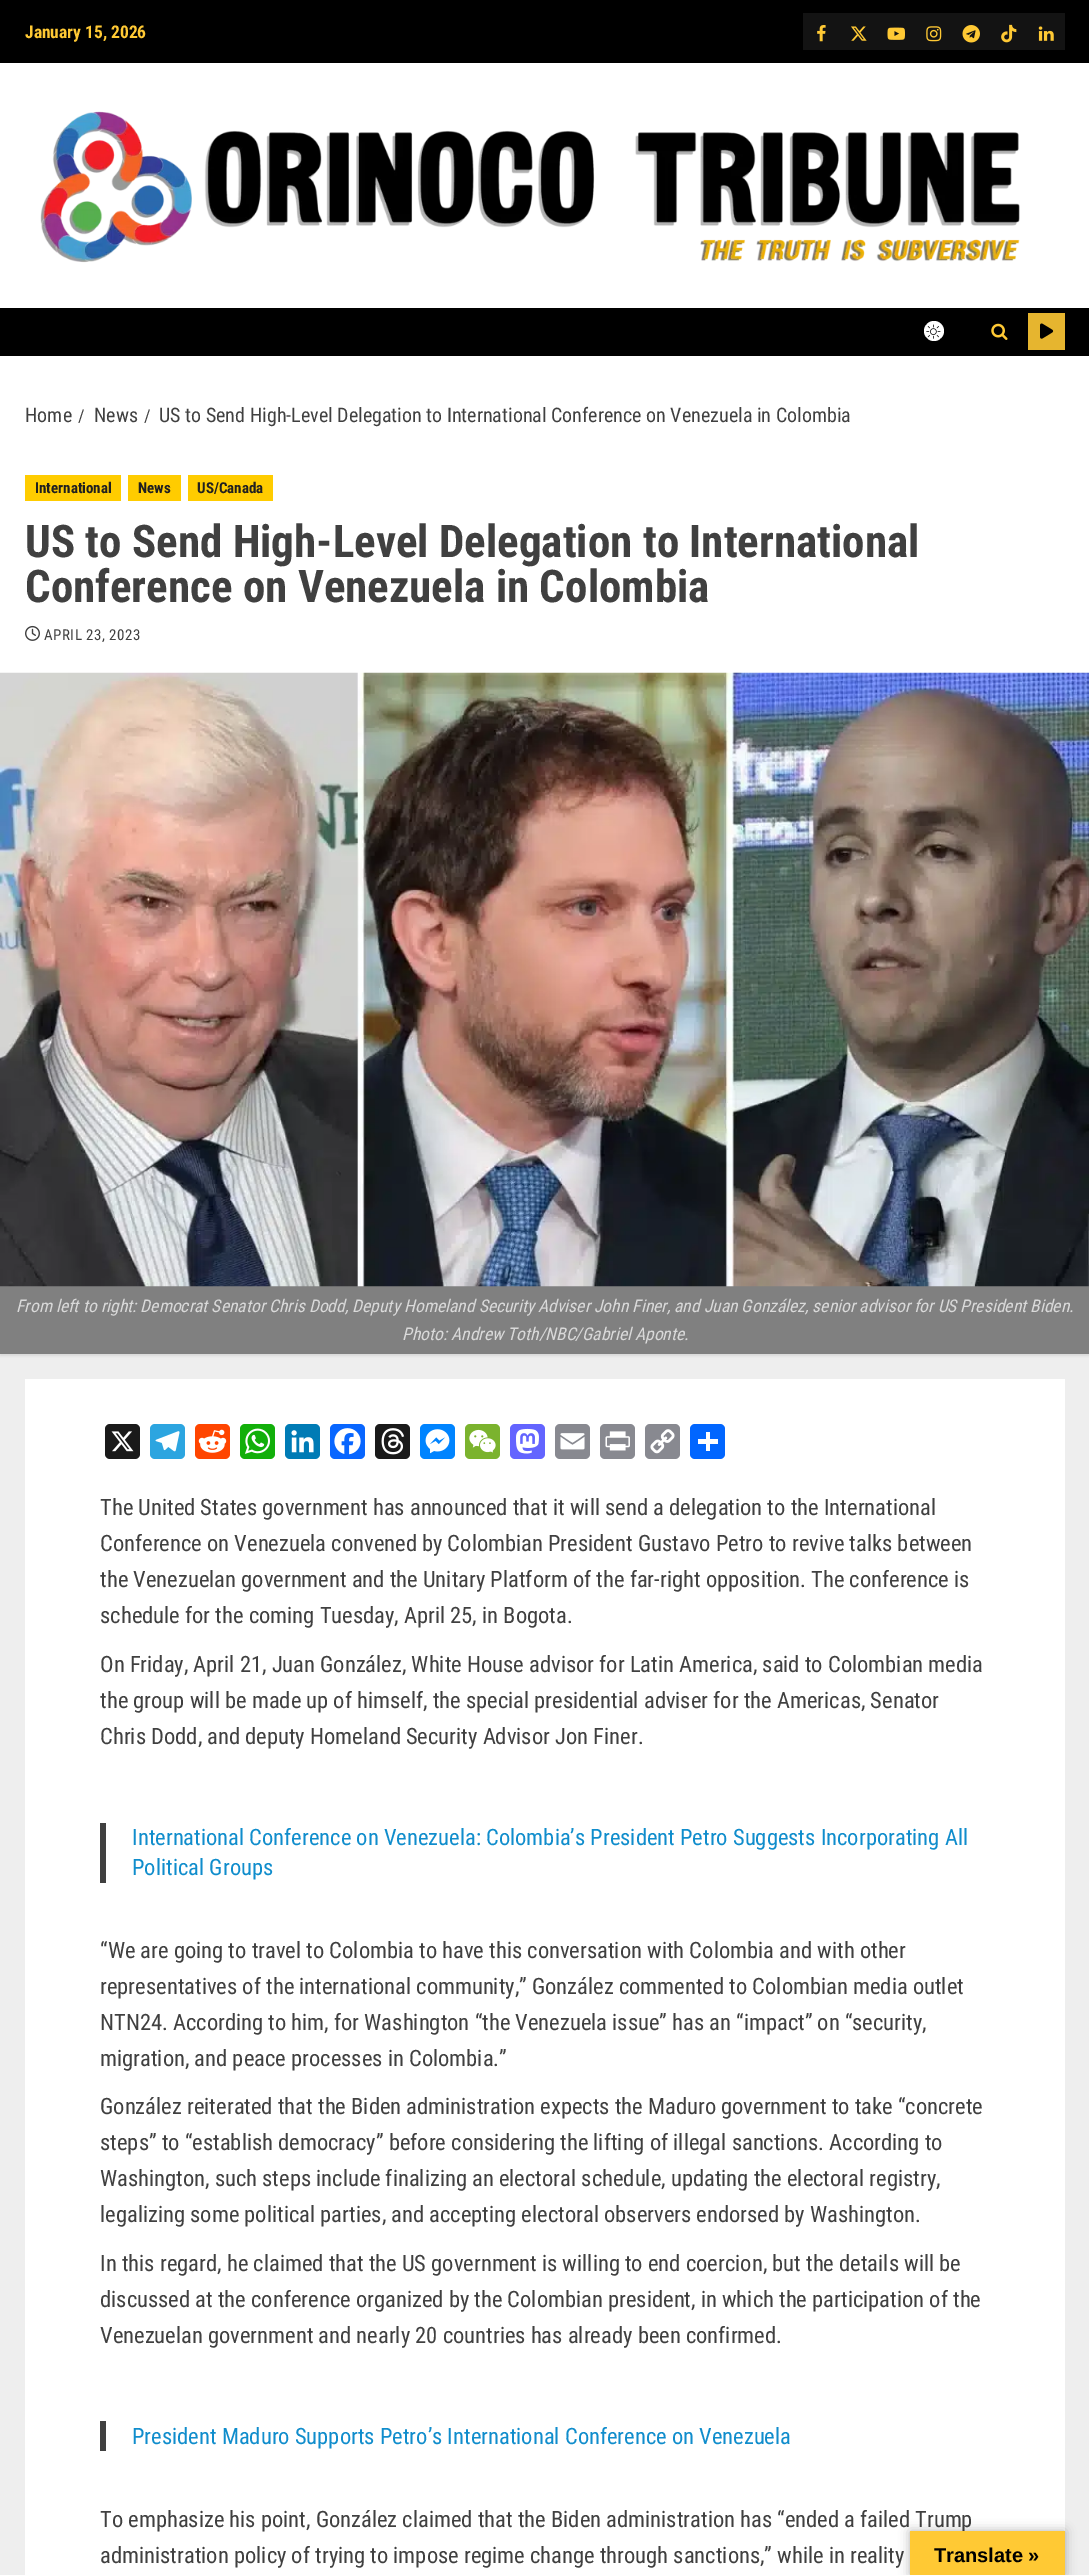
%!PS-Adobe-3.0
%%BoundingBox: 0 0 1089 2575
%%LanguageLevel: 3
%%Pages: 1
%%EndComments
%%BeginProlog
/setink { 3 { 255 div 3 1 roll } repeat setrgbcolor } def
/usefont { [ exch dup neg 0 0 3 -1 roll 0 0 ] selectfont } def
/drawtext { setink usefont moveto show } def
/fillbox { setink rectfill } def
/setalpha { dup .setfillconstantalpha .setstrokeconstantalpha } def
/disc { newpath 0 360 arc closepath } def
/rrect { 5 dict begin { /r /h /w /y /x } { exch def } forall
  x r add y moveto x w add y 2 copy h add r arct x w add y h add x 1 index r arct
  x y h add x y r arct x y 2 copy exch w add exch r arct closepath end } def
/softshadow { 12 dict begin { /a /b /q /h /w /y /x } { exch def } forall gsave /was 0 def
  9 -2 -9 { dup b mul 4 div /e exch def 1 sub .425 mul 2.718 exch exp 1 add a .99 .min exch div /now exch def
    1 1 now sub 1 was sub div sub setalpha /was now def
    w h .min e 2 mul add 0 gt { x e sub y e sub w e 2 mul add h e 2 mul add
      q e add b .6 mul add w h .min 2 div e add .min 0 .max rrect fill } if } for grestore end } def
/drawimage { 5 dict begin { /h /w /y /x /name } { exch def } forall
  gsave x y translate w h scale
  w h 8 [w 0 0 h 0 0] name (r) file false 3 colorimage grestore end } def
%%EndProlog
%%BeginSetup
<< /PageSize [1089 2575] /PageUsesTransparency true >> setpagedevice
%%EndSetup
%%Page: 1 1
0 .pushpdf14devicefilter
0 2575 translate 1 -1 scale
4 setmiterlimit
0 0 1089 2575 238 238 238 fillbox
0 0 1089 63 0 0 0 fillbox
(January 15, 2026) 25 38 /RobotoCondensed-Bold 17.5 255 201 52 drawtext
803 13 262 37 19 19 19 fillbox
(assets/img1.rgb) 817 25 9 17 drawimage
(assets/img2.rgb) 851 26 16 15 drawimage
(assets/img3.rgb) 887 27 18 13 drawimage
(assets/img4.rgb) 926 26 16 16 drawimage
(assets/img5.rgb) 962 25 18 18 drawimage
(assets/img6.rgb) 1001 24 16 19 drawimage
(assets/img7.rgb) 1038 26 16 15 drawimage
0 63 1089 245 255 255 255 fillbox
(assets/img8.rgb) 40 111 980 152 drawimage
0 308 1089 48 0 0 0 fillbox
255 255 255 setink
934 331 10 disc fill
(assets/img9.rgb) 926 324 15 15 drawimage
(assets/img10.rgb) 991 323 17 17 drawimage
1028 313 37 37 230 181 47 fillbox
(assets/img11.rgb) 1040 323 14 16 drawimage
0 0 0 setink
0 359 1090 997 0 1 0.08 softshadow
0 356 1089 317 255 255 255 fillbox
(Home) 25 422 /RobotoCondensed-Regular 20 64 64 64 drawtext
(/) 78 422 /RobotoCondensed-Regular 17.5 64 64 64 drawtext
(News) 94 422 /RobotoCondensed-Regular 20 64 64 64 drawtext
(/) 144 422 /RobotoCondensed-Regular 17.5 64 64 64 drawtext
(US to Send High-Level Delegation to International Conference on Venezuela in Colombia) 159 422 /RobotoCondensed-Regular 20 64 64 64 drawtext
25 475 96 26 255 204 0 fillbox
(International) 35 493 /RobotoCondensed-Bold 15 32 32 32 drawtext
128 475 53 26 255 204 0 fillbox
(News) 138 493 /RobotoCondensed-Bold 15 32 32 32 drawtext
188 475 85 26 255 204 0 fillbox
(US/Canada) 197 493 /RobotoCondensed-Bold 15 32 32 32 drawtext
(US to Send High-Level Delegation to International) 25 557 /RobotoCondensed-Bold 45 64 64 64 drawtext
(Conference on Venezuela in Colombia) 25 602 /RobotoCondensed-Bold 45 64 64 64 drawtext
(assets/img12.rgb) 25 625 15 16 drawimage
/RobotoCondensed-Regular 15 usefont
44 640 moveto 0.5 0 (APRIL 23, 2023) ashow
0 1286 1089 68 128 128 128 fillbox
(assets/img13.rgb) 0 672 1089 615 drawimage
(From left to right: Democrat Senator Chris Dodd, Deputy Homeland Security Adviser John Finer, and Juan González, senior advisor for US President Biden.) 16 1312 /RobotoCondensed-Italic 17.5 217 217 217 drawtext
(Photo: Andrew Toth/NBC/Gabriel Aponte.) 402 1340 /RobotoCondensed-Italic 17.5 217 217 217 drawtext
25 1379 1040 1196 255 255 255 fillbox
26 26 26 setink
105 1424 35 35 5 rrect fill
(assets/img14.rgb) 111 1431 23 21 drawimage
44 165 224 setink
150 1424 35 35 5 rrect fill
(assets/img15.rgb) 155 1431 25 21 drawimage
255 69 0 setink
195 1424 35 35 5 rrect fill
(assets/img16.rgb) 198 1429 29 24 drawimage
18 175 10 setink
240 1424 35 35 5 rrect fill
(assets/img17.rgb) 245 1428 26 26 drawimage
0 123 181 setink
285 1424 35 35 5 rrect fill
(assets/img18.rgb) 291 1430 23 23 drawimage
8 102 255 setink
330 1424 35 35 5 rrect fill
(assets/img19.rgb) 334 1428 27 27 drawimage
26 26 26 setink
375 1424 35 35 5 rrect fill
(assets/img20.rgb) 381 1428 24 27 drawimage
0 132 255 setink
420 1424 35 35 5 rrect fill
(assets/img21.rgb) 425 1429 25 25 drawimage
123 179 46 setink
465 1424 35 35 5 rrect fill
(assets/img22.rgb) 469 1429 27 24 drawimage
99 100 255 setink
510 1424 35 35 5 rrect fill
(assets/img23.rgb) 516 1428 23 26 drawimage
136 137 144 setink
555 1424 35 35 5 rrect fill
(assets/img24.rgb) 560 1433 25 17 drawimage
600 1424 35 35 5 rrect fill
(assets/img25.rgb) 605 1431 25 20 drawimage
645 1424 35 35 5 rrect fill
(assets/img26.rgb) 650 1429 25 25 drawimage
1 102 255 setink
690 1424 35 35 5 rrect fill
706 1432 4 19 255 255 255 fillbox
698 1439 20 5 255 255 255 fillbox
(The United States government has announced that it will send a delegation to the International) 100 1515 /RobotoCondensed-Regular 22.5 64 64 64 drawtext
(Conference on Venezuela convened by Colombian President Gustavo Petro to revive talks between) 100 1551 /RobotoCondensed-Regular 22.5 64 64 64 drawtext
(the Venezuelan government and the Unitary Platform of the far-right opposition. The conference is) 100 1587 /RobotoCondensed-Regular 22.5 64 64 64 drawtext
(schedule for the coming Tuesday, April 25, in Bogota.) 100 1623 /RobotoCondensed-Regular 22.5 64 64 64 drawtext
(On Friday, April 21, Juan González, White House advisor for Latin America, said to Colombian media) 100 1672 /RobotoCondensed-Regular 22.5 64 64 64 drawtext
(the group will be made up of himself, the special presidential adviser for the Americas, Senator) 100 1708 /RobotoCondensed-Regular 22.5 64 64 64 drawtext
(Chris Dodd, and deputy Homeland Security Advisor Jon Finer.) 100 1744 /RobotoCondensed-Regular 22.5 64 64 64 drawtext
100 1823 6 60 64 64 64 fillbox
(International Conference on Venezuela: Colombia’s President Petro Suggests Incorporating All) 132 1845 /RobotoCondensed-Regular 22.5 16 141 204 drawtext
(Political Groups) 132 1875 /RobotoCondensed-Regular 22.5 16 141 204 drawtext
(“We are going to travel to Colombia to have this conversation with Colombia and with other) 100 1958 /RobotoCondensed-Regular 22.5 64 64 64 drawtext
(representatives of the international community,” González commented to Colombian media outlet) 100 1994 /RobotoCondensed-Regular 22.5 64 64 64 drawtext
(NTN24. According to him, for Washington “the Venezuela issue” has an “impact” on “security,) 100 2030 /RobotoCondensed-Regular 22.5 64 64 64 drawtext
(migration, and peace processes in Colombia.”) 100 2066 /RobotoCondensed-Regular 22.5 64 64 64 drawtext
(González reiterated that the Biden administration expects the Maduro government to take “concrete) 100 2114 /RobotoCondensed-Regular 22.5 64 64 64 drawtext
(steps” to “establish democracy” before considering the lifting of illegal sanctions. According to) 100 2150 /RobotoCondensed-Regular 22.5 64 64 64 drawtext
(Washington, such steps include finalizing an electoral schedule, updating the electoral registry,) 100 2186 /RobotoCondensed-Regular 22.5 64 64 64 drawtext
(legalizing some political parties, and accepting electoral observers endorsed by Washington.) 100 2222 /RobotoCondensed-Regular 22.5 64 64 64 drawtext
(In this regard, he claimed that the US government is willing to end coercion, but the details will be) 100 2271 /RobotoCondensed-Regular 22.5 64 64 64 drawtext
(discussed at the conference organized by the Colombian president, in which the participation of the) 100 2307 /RobotoCondensed-Regular 22.5 64 64 64 drawtext
(Venezuelan government and nearly 20 countries has already been confirmed.) 100 2343 /RobotoCondensed-Regular 22.5 64 64 64 drawtext
100 2421 6 30 64 64 64 fillbox
(President Maduro Supports Petro’s International Conference on Venezuela) 132 2444 /RobotoCondensed-Regular 22.5 16 141 204 drawtext
(To emphasize his point, González claimed that the Biden administration has “ended a failed Trump) 100 2527 /RobotoCondensed-Regular 22.5 64 64 64 drawtext
(administration policy of trying to impose regime change through sanctions,” while in reality) 100 2563 /RobotoCondensed-Regular 22.5 64 64 64 drawtext
0 0 0 setink
910 2531 155 44 0 5.5 0.3 softshadow
910 2531 155 44 255 201 52 fillbox
(Translate ») 934 2562 /LiberationSans-Bold 20 0 0 0 drawtext
.poppdf14devicefilter showpage
%%EOF
